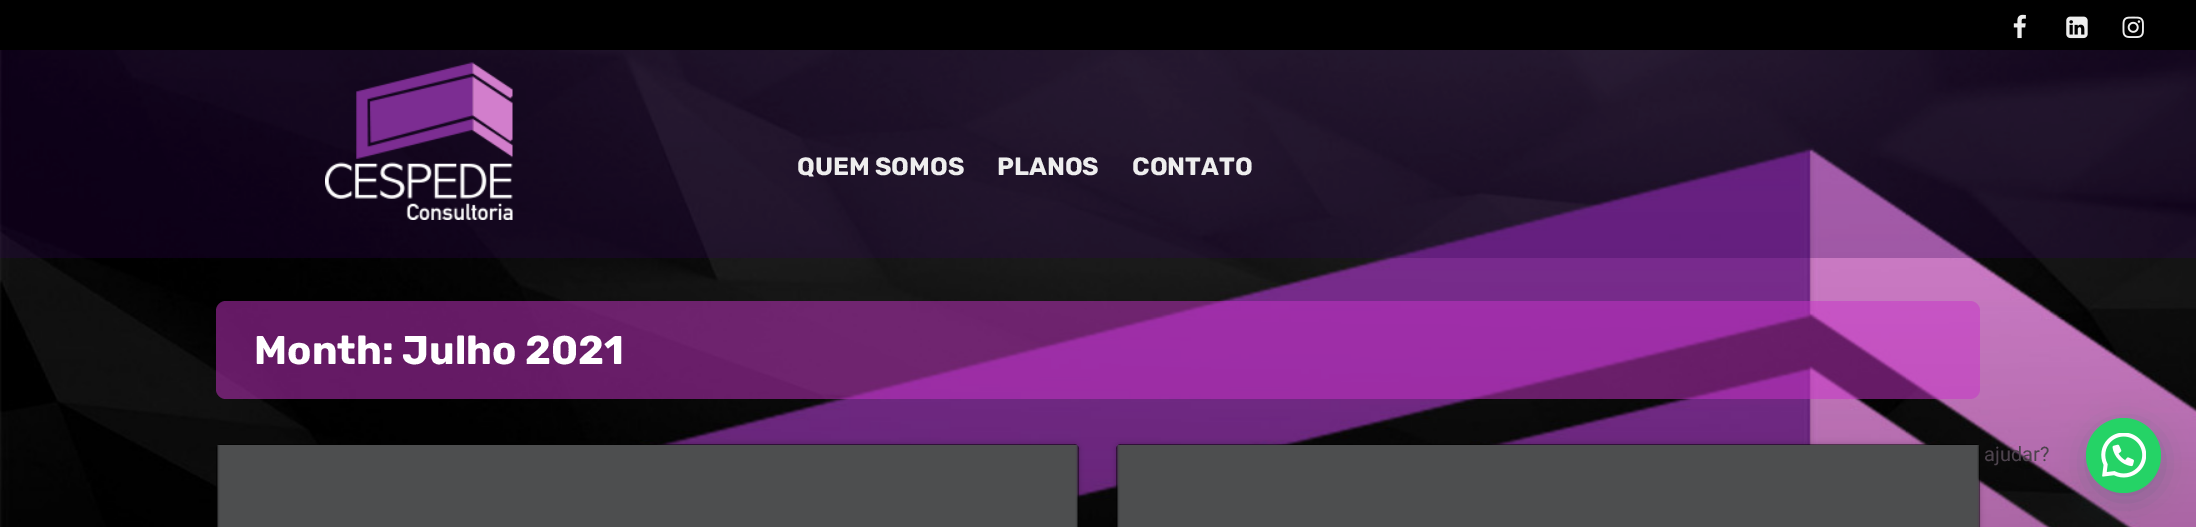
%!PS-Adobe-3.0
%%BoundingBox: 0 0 2196 527
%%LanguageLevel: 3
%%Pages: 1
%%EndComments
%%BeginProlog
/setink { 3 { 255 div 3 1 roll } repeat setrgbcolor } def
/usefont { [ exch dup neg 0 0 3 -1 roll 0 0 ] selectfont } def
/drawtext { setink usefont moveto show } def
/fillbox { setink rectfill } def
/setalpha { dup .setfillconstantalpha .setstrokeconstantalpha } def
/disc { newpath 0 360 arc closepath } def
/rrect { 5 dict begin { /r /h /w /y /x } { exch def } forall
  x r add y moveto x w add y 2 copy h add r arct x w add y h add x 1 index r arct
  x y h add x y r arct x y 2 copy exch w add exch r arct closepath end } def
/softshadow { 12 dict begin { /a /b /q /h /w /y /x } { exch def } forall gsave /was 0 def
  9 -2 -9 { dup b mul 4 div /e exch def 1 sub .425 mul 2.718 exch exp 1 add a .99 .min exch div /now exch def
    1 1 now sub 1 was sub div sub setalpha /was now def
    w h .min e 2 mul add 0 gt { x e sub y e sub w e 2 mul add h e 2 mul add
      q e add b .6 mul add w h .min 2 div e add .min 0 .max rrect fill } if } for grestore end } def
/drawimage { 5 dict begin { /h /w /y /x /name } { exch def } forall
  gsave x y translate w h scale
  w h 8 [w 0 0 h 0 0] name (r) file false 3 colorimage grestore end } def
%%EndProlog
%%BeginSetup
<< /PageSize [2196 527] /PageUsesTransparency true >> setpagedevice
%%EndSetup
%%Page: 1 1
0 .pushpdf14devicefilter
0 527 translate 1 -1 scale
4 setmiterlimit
0 0 2196 527 255 255 255 fillbox
(assets/img1.rgb) 0 50 2196 477 drawimage
0.27 setalpha
0 50 2196 208 47 0 86 fillbox
1 setalpha
0 0 2196 50 0 0 0 fillbox
(assets/img2.rgb) 2013 14 13 25 drawimage
(assets/img3.rgb) 2066 16 22 23 drawimage
(assets/img4.rgb) 2122 16 22 22 drawimage
(assets/img5.rgb) 325 62 188 158 drawimage
(QUEM SOMOS) 797 175 /Rubik-Bold 25 238 238 238 drawtext
(PLANOS) 997 175 /Rubik-Bold 25 238 238 238 drawtext
(CONTATO) 1132 175 /Rubik-Bold 25 238 238 238 drawtext
0.5 setalpha
200 50 200 setink
216 301 1764 98 10 rrect fill
1 setalpha
(Month: Julho 2021) 254 364 /Rubik-Bold 40 255 255 255 drawtext
gsave
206 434 moveto 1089 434 lineto 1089 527 lineto 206 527 lineto closepath 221 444 moveto 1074 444 lineto 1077 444 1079 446 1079 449 curveto 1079 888 lineto 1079 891 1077 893 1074 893 curveto 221 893 lineto 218 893 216 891 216 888 curveto 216 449 lineto 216 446 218 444 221 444 curveto closepath eoclip newpath
0 0 0 setink
216 444 863 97 5 3 0.2 softshadow
grestore
0.49 setalpha
0 0 0 setink
216 444 863 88 5 rrect fill
0.12 setalpha
216.5 444.5 862 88 4.5 rrect stroke
1 setalpha
(assets/img6.rgb) 217 445 861 82 drawimage
gsave
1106 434 moveto 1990 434 lineto 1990 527 lineto 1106 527 lineto closepath 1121 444 moveto 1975 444 lineto 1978 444 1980 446 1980 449 curveto 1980 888 lineto 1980 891 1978 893 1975 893 curveto 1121 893 lineto 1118 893 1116 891 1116 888 curveto 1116 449 lineto 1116 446 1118 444 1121 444 curveto closepath eoclip newpath
1116 444 864 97 5 3 0.2 softshadow
grestore
0.49 setalpha
1116 444 864 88 5 rrect fill
0.12 setalpha
1116.5 444.5 863 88 4.5 rrect stroke
1 setalpha
(assets/img7.rgb) 1117 445 862 82 drawimage
7 94 84 setink
2088 425 75 75 37.5 15 0.24 softshadow
37 211 102 setink
2123.5 455.5 37.5 disc fill
(ajudar?) 1984 461 /Roboto-Regular 20 77 67 77 drawtext
(assets/img8.rgb) 2101 433 45 45 drawimage
.poppdf14devicefilter showpage
%%EOF
